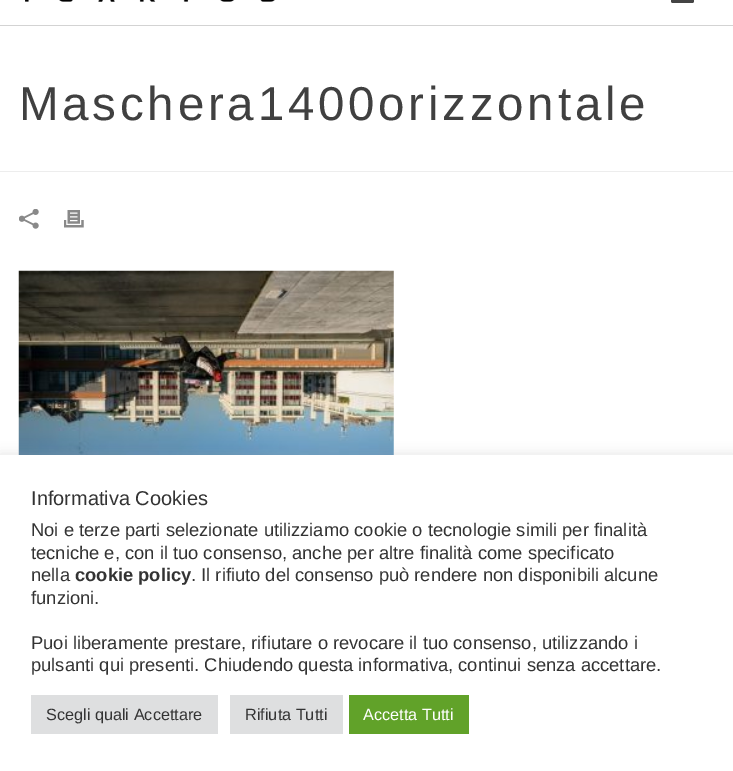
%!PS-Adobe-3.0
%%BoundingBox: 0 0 733 771
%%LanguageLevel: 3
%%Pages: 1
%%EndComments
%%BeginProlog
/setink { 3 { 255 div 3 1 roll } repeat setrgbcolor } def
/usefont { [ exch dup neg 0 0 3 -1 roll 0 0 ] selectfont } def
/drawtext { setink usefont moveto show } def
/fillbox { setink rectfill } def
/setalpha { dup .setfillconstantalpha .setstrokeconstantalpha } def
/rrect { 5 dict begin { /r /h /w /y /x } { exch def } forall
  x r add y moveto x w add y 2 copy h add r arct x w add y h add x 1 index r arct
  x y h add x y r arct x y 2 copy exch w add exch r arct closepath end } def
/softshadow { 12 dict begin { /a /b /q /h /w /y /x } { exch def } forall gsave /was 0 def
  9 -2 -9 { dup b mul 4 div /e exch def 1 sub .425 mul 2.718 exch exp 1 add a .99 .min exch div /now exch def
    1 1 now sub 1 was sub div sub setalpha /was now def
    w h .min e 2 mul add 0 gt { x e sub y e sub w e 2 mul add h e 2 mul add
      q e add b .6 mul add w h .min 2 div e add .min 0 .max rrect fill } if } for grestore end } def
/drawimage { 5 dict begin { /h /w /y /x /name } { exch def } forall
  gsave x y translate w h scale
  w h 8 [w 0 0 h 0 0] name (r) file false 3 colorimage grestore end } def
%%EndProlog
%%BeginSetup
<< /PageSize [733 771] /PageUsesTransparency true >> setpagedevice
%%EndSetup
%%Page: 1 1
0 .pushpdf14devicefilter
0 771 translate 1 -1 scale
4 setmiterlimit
0 0 733 771 255 255 255 fillbox
0 171 733 1 237 237 237 fillbox
0 25 733 1 211 211 211 fillbox
(assets/img1.rgb) 25 0 250 2 drawimage
68 68 68 setink
671 -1 23 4 2 rrect fill
/LiberationSans-Regular 47.5 usefont
64 64 64 setink
19 120 moveto 3.75 0 (Maschera1400orizzontale) ashow
(assets/img2.rgb) 19 209 20 20 drawimage
(assets/img3.rgb) 64 210 20 18 drawimage
(assets/img4.rgb) 18 270 376 185 drawimage
172 171 171 setink
0 454 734 316 0 6 0.3 softshadow
0 455 733 316 255 255 255 fillbox
(Informativa Cookies) 31 505 /LiberationSans-Regular 20 51 51 51 drawtext
(Noi e terze parti selezionate utilizziamo cookie o tecnologie simili per finalità) 31 536 /LiberationSans-Regular 18.35 51 51 51 drawtext
(tecniche e, con il tuo consenso, anche per altre finalità come specificato) 31 559 /LiberationSans-Regular 18.35 51 51 51 drawtext
(nella) 31 581 /LiberationSans-Regular 18.35 51 51 51 drawtext
(cookie policy) 75 581 /LiberationSans-Bold 18.35 51 51 51 drawtext
(. Il rifiuto del consenso può rendere non disponibili alcune) 191 581 /LiberationSans-Regular 18.35 51 51 51 drawtext
(funzioni.) 31 604 /LiberationSans-Regular 18.35 51 51 51 drawtext
(Puoi liberamente prestare, rifiutare o revocare il tuo consenso, utilizzando i) 31 649 /LiberationSans-Regular 18.35 51 51 51 drawtext
(pulsanti qui presenti. Chiudendo questa informativa, continui senza accettare.) 31 671 /LiberationSans-Regular 18.35 51 51 51 drawtext
31 695 187 39 222 223 224 fillbox
(Scegli quali Accettare) 46 720 /LiberationSans-Regular 16.25 51 51 51 drawtext
230 695 113 39 222 223 224 fillbox
(Rifiuta Tutti) 245 720 /LiberationSans-Regular 16.25 51 51 51 drawtext
349 695 120 39 97 162 41 fillbox
(Accetta Tutti) 363 720 /LiberationSans-Regular 16.25 255 255 255 drawtext
.poppdf14devicefilter showpage
%%EOF
